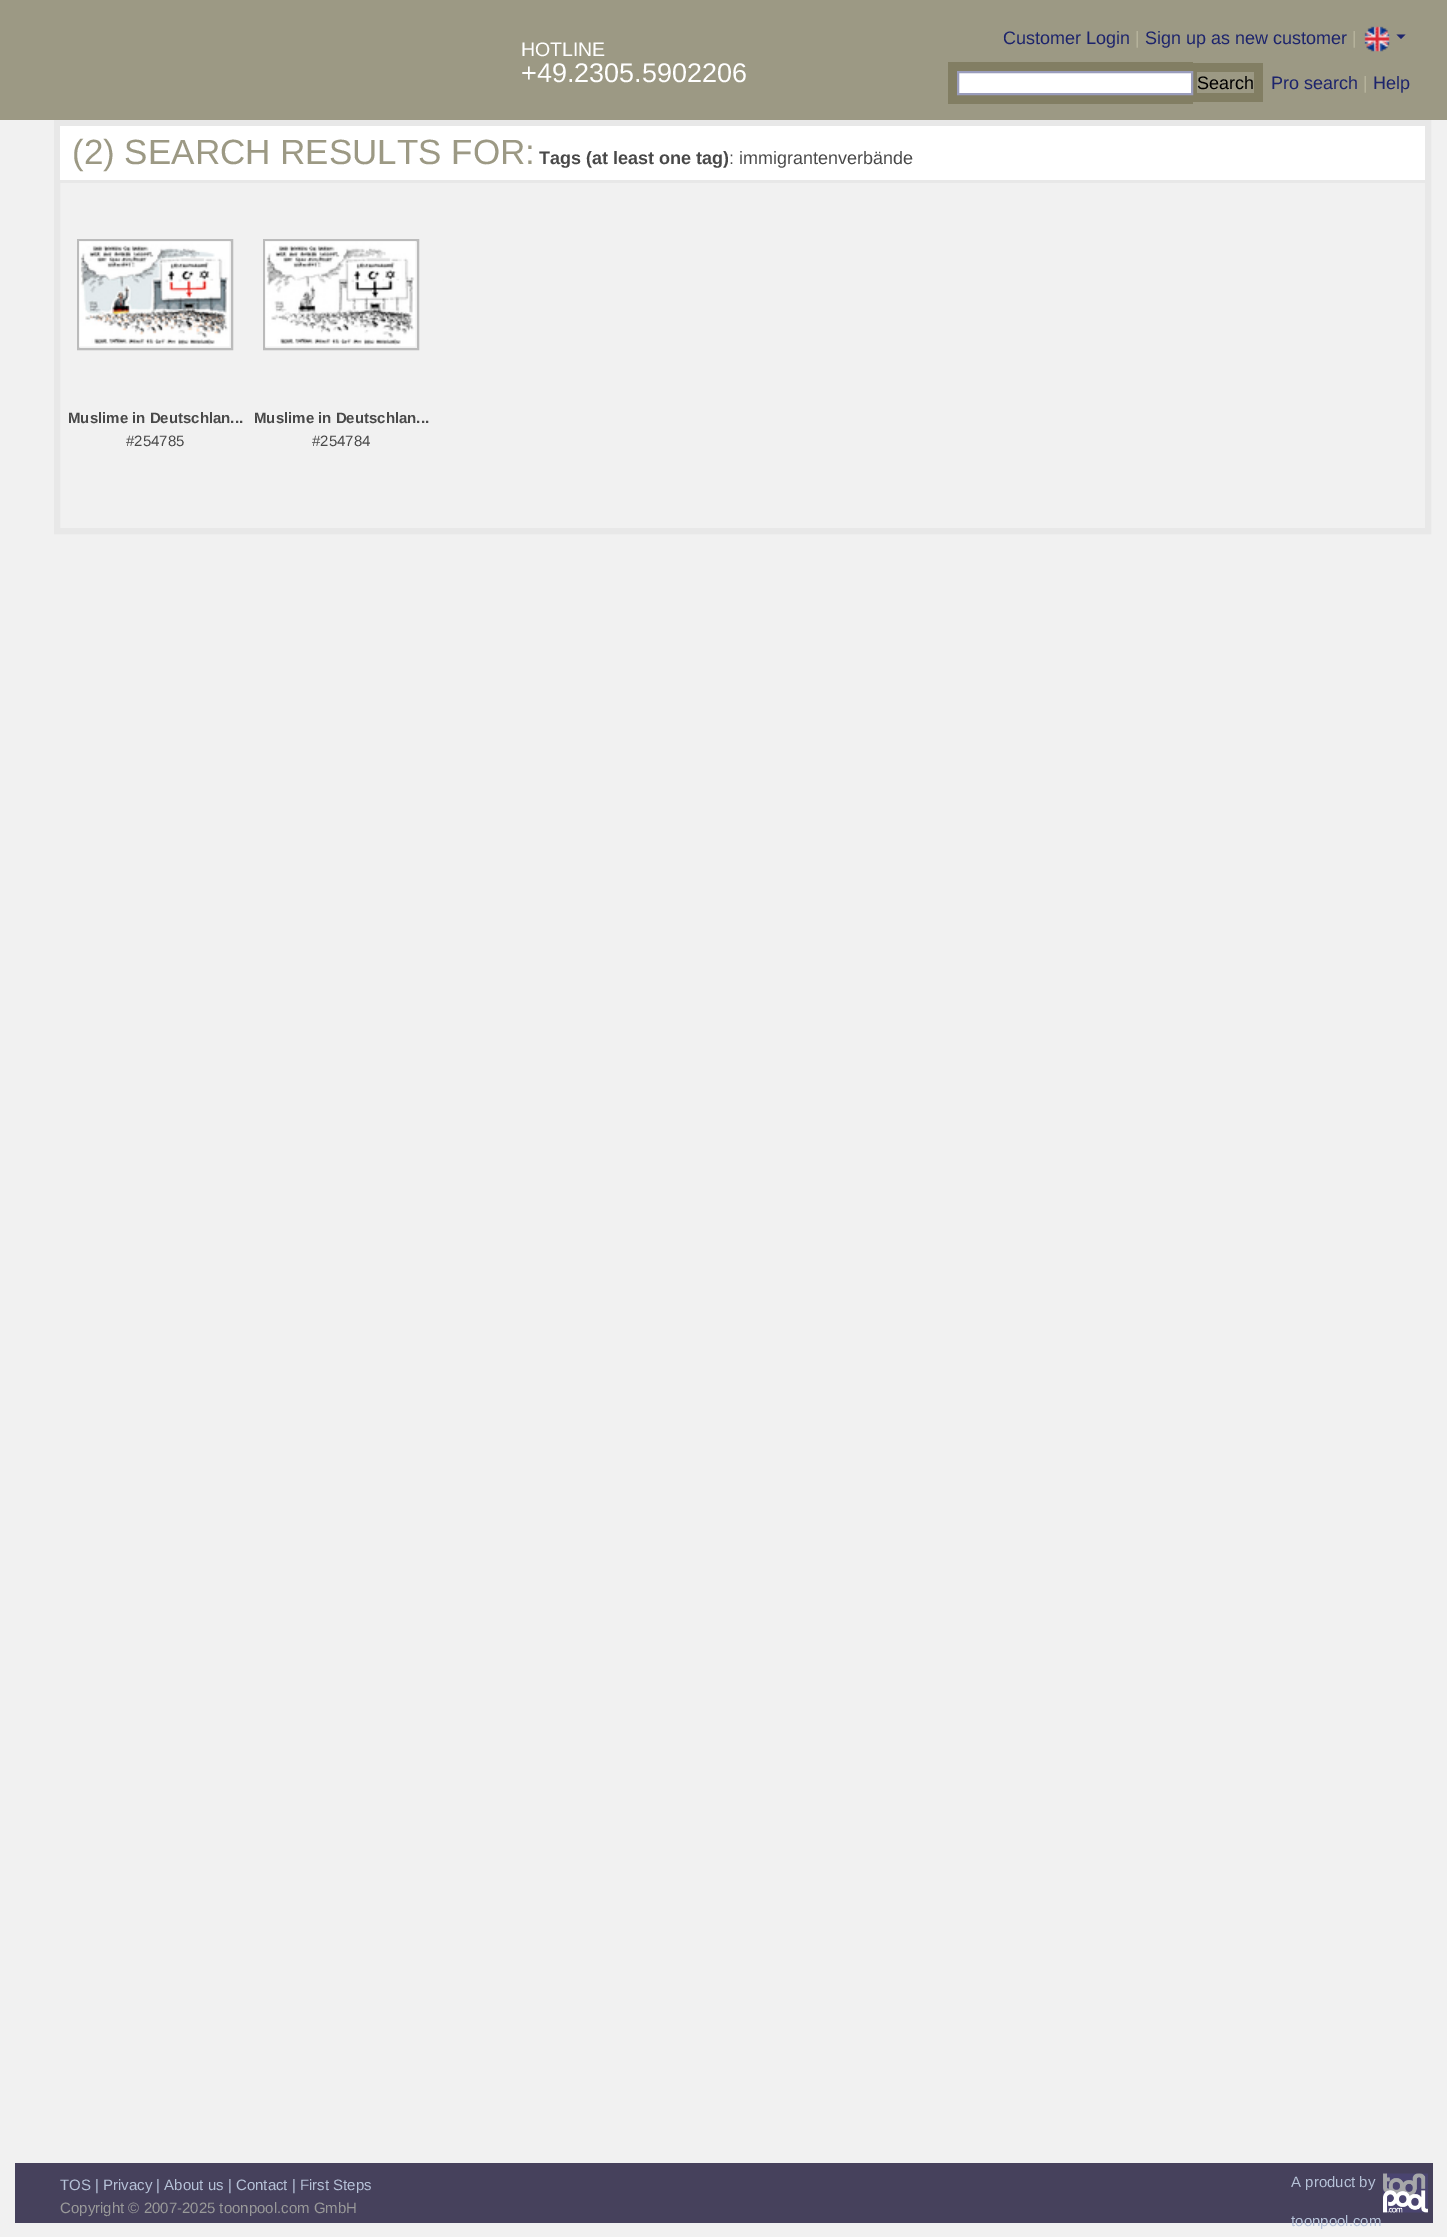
%!PS-Adobe-3.0
%%BoundingBox: 0 0 1447 2237
%%LanguageLevel: 3
%%Pages: 1
%%EndComments
%%BeginProlog
/setink { 3 { 255 div 3 1 roll } repeat setrgbcolor } def
/usefont { [ exch dup neg 0 0 3 -1 roll 0 0 ] selectfont } def
/drawtext { setink usefont moveto show } def
/fillbox { setink rectfill } def
/drawimage { 5 dict begin { /h /w /y /x /name } { exch def } forall
  gsave x y translate w h scale
  w h 8 [w 0 0 h 0 0] name (r) file false 3 colorimage grestore end } def
%%EndProlog
%%BeginSetup
<< /PageSize [1447 2237] >> setpagedevice
%%EndSetup
%%Page: 1 1
0 2237 translate 1 -1 scale
4 setmiterlimit
0 0 1447 2237 241 241 241 fillbox
0 0 1447 120 156 153 132 fillbox
(Customer Login) 1003 44 /LiberationSans-Regular 18 29 36 108 drawtext
(|) 1135 44 /LiberationSans-Regular 18 181 178 155 drawtext
(Sign up as new customer) 1145 44 /LiberationSans-Regular 18 29 36 108 drawtext
(|) 1352 44 /LiberationSans-Regular 18 181 178 155 drawtext
(assets/img1.rgb) 1364 26 26 26 drawimage
29 36 108 setink
1396.5 34.5 moveto 1405.5 34.5 lineto 1401 39 lineto closepath fill
(HOTLINE) 521 56 /LiberationSans-Regular 19.5 255 255 255 drawtext
(+49.2305.5902206) 521 82 /LiberationSans-Regular 27 255 255 255 drawtext
948 62 245 42 130 126 99 fillbox
1193 63 70 39 130 126 99 fillbox
255 255 255 setink
958 72 moveto 1192 72 lineto 1192 94 lineto 958 94 lineto closepath gsave fill grestore
153 156 187 setink
2 setlinewidth
stroke
1197 72 57 21 156 153 132 fillbox
(Search) 1197 89 /LiberationSans-Regular 18 0 0 0 drawtext
(Pro search) 1271 89 /LiberationSans-Regular 18 29 36 108 drawtext
(|) 1363 89 /LiberationSans-Regular 18 181 178 155 drawtext
(Help) 1373 89 /LiberationSans-Regular 18 29 36 108 drawtext
232 232 232 setink
6 setlinewidth
57 123 1371 408 rectstroke
60 126 1365 54 255 255 255 fillbox
(\(2\) SEARCH RESULTS FOR:) 72 164 /LiberationSans-Regular 35 156 153 132 drawtext
(Tags \(at least one tag\)) 539 164 /LiberationSans-Bold 18 73 73 73 drawtext
(: immigrantenverbände) 729 164 /LiberationSans-Regular 18 73 73 73 drawtext
60 180 1365 3 232 232 232 fillbox
187 187 187 setink
2 setlinewidth
78 240 154 109 rectstroke
(assets/img2.rgb) 79 241 151 106 drawimage
(Muslime in Deutschlan...) 68 423 /LiberationSans-Bold 15 73 73 73 drawtext
(#254785) 126 446 /LiberationSans-Regular 15 73 73 73 drawtext
187 187 187 setink
264 240 154 109 rectstroke
(assets/img3.rgb) 265 241 151 106 drawimage
(Muslime in Deutschlan...) 254 423 /LiberationSans-Bold 15 73 73 73 drawtext
(#254784) 312 446 /LiberationSans-Regular 15 73 73 73 drawtext
15 2163 1418 60 70 65 92 fillbox
(TOS | Privacy | About us | Contact | First Steps) 60 2190 /LiberationSans-Regular 15 182 194 216 drawtext
(Copyright © 2007-2025 toonpool.com GmbH) 60 2213 /LiberationSans-Regular 15 153 153 153 drawtext
(A product by) 1291 2187 /LiberationSans-Regular 15 182 194 216 drawtext
(assets/img4.rgb) 1383 2173 45 40 drawimage
(toonpool.com) 1291 2226 /LiberationSans-Regular 15 182 194 216 drawtext
showpage
%%EOF
